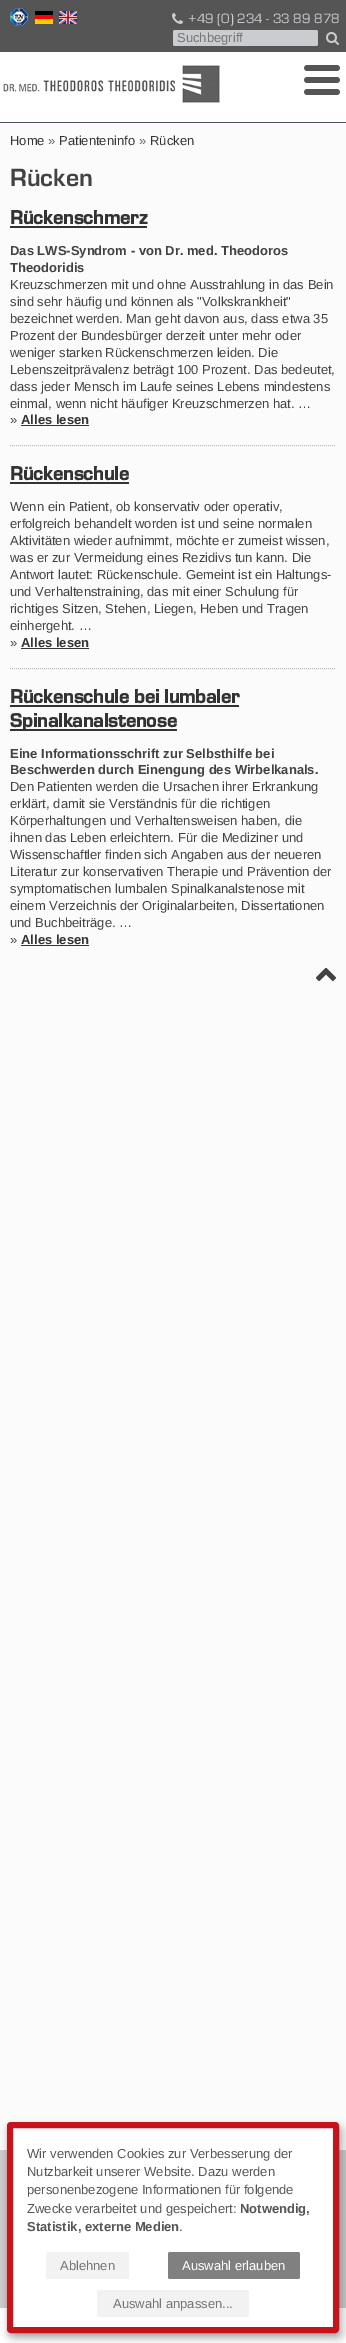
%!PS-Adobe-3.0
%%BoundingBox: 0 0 346 2343
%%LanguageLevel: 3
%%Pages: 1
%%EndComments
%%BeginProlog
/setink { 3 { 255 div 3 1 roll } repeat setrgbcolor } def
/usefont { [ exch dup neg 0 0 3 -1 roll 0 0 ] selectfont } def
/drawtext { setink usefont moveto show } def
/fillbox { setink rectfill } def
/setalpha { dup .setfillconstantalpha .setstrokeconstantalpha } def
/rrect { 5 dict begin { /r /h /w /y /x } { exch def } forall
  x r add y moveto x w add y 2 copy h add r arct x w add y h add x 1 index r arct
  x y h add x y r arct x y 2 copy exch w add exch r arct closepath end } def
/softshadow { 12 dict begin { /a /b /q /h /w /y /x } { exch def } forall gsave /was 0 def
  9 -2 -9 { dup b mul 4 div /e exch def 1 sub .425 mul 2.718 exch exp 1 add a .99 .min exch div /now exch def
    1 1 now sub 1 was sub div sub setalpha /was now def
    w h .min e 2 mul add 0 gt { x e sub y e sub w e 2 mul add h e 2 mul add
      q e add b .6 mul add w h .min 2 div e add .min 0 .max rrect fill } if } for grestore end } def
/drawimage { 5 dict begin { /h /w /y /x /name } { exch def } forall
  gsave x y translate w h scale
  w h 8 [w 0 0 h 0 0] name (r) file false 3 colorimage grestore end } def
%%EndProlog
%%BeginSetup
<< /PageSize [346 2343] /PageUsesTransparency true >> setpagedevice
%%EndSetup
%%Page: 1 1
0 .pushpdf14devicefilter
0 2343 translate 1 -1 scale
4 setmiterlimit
0 0 346 2343 255 255 255 fillbox
0 0 346 52 85 85 85 fillbox
0 122 346 1 77 85 95 fillbox
(assets/img1.rgb) 10 8 18 18 drawimage
(assets/img2.rgb) 35 11 18 13 drawimage
(assets/img3.rgb) 59 11 18 13 drawimage
(assets/img4.rgb) 172 13 11 11 drawimage
(+49 \(0\) 234 - 33 89 878) 188 23 /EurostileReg-Regular 14 202 204 207 drawtext
173 30 145 16 2 rrect fill
(Suchbegriff) 177 42 /LiberationSans-Regular 13 117 117 117 drawtext
(assets/img5.rgb) 326 32 13 13 drawimage
(assets/img6.rgb) 3 65 217 38 drawimage
(assets/img7.rgb) 304 65 36 30 drawimage
0 123 346 2026 251 251 251 fillbox
(Home) 10 145 /LiberationSans-Regular 13 51 51 51 drawtext
(») 48 145 /LiberationSans-Regular 13 97 97 97 drawtext
(Patienteninfo) 59 145 /LiberationSans-Regular 13 51 51 51 drawtext
(») 139 145 /LiberationSans-Regular 13 97 97 97 drawtext
(Rücken) 150 145 /LiberationSans-Regular 13 51 51 51 drawtext
(Rücken) 10 186 /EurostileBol-Regular 26 66 66 66 drawtext
(Rückenschmerz) 10 224 /EurostileBol-Bold 20 51 51 51 drawtext
10 226 137 2 51 51 51 fillbox
(Das LWS-Syndrom - von Dr. med. Theodoros) 10 255 /LiberationSans-Bold 13 66 66 66 drawtext
(Theodoridis) 10 272 /LiberationSans-Bold 13 66 66 66 drawtext
(Kreuzschmerzen mit und ohne Ausstrahlung in das Bein) 10 289 /LiberationSans-Regular 13 66 66 66 drawtext
(sind sehr häufig und können als "Volkskrankheit") 10 306 /LiberationSans-Regular 13 66 66 66 drawtext
(bezeichnet werden. Man geht davon aus, dass etwa 35) 10 323 /LiberationSans-Regular 13 66 66 66 drawtext
(Prozent der Bundesbürger derzeit unter mehr oder) 10 340 /LiberationSans-Regular 13 66 66 66 drawtext
(weniger starken Rückenschmerzen leiden. Die) 10 357 /LiberationSans-Regular 13 66 66 66 drawtext
(Lebenszeitprävalenz beträgt 100 Prozent. Das bedeutet,) 10 374 /LiberationSans-Regular 13 66 66 66 drawtext
(dass jeder Mensch im Laufe seines Lebens mindestens) 10 391 /LiberationSans-Regular 13 66 66 66 drawtext
(einmal, wenn nicht häufiger Kreuzschmerzen hat. …) 10 408 /LiberationSans-Regular 13 66 66 66 drawtext
(») 10 424 /LiberationSans-Regular 13 66 66 66 drawtext
(Alles lesen) 21 424 /LiberationSans-Bold 13 51 51 51 drawtext
21 425 68 1 51 51 51 fillbox
183 183 183 setink
[1 1] 0 setdash
10 445.5 moveto 336 445.5 lineto stroke
(Rückenschule) 10 480 /EurostileBol-Bold 20 51 51 51 drawtext
10 482 119 2 51 51 51 fillbox
(Wenn ein Patient, ob konservativ oder operativ,) 10 511 /LiberationSans-Regular 13 66 66 66 drawtext
(erfolgreich behandelt worden ist und seine normalen) 10 528 /LiberationSans-Regular 13 66 66 66 drawtext
(Aktivitäten wieder aufnimmt, möchte er zumeist wissen,) 10 545 /LiberationSans-Regular 13 66 66 66 drawtext
(was er zur Vermeidung eines Rezidivs tun kann. Die) 10 562 /LiberationSans-Regular 13 66 66 66 drawtext
(Antwort lautet: Rückenschule. Gemeint ist ein Haltungs-) 10 579 /LiberationSans-Regular 13 66 66 66 drawtext
(und Verhaltenstraining, das mit einer Schulung für) 10 596 /LiberationSans-Regular 13 66 66 66 drawtext
(richtiges Sitzen, Stehen, Liegen, Heben und Tragen) 10 613 /LiberationSans-Regular 13 66 66 66 drawtext
(einhergeht. …) 10 630 /LiberationSans-Regular 13 66 66 66 drawtext
(») 10 647 /LiberationSans-Regular 13 66 66 66 drawtext
(Alles lesen) 21 647 /LiberationSans-Bold 13 51 51 51 drawtext
21 648 68 1 51 51 51 fillbox
183 183 183 setink
10 668.5 moveto 336 668.5 lineto stroke
(Rückenschule bei lumbaler) 10 703 /EurostileBol-Bold 20 51 51 51 drawtext
10 705 229 2 51 51 51 fillbox
10 729 167 2 51 51 51 fillbox
(Spinalkanalstenose) 10 727 /EurostileBol-Bold 20 51 51 51 drawtext
(Eine Informationsschrift zur Selbsthilfe bei) 10 758 /LiberationSans-Bold 13 66 66 66 drawtext
(Beschwerden durch Einengung des Wirbelkanals.) 10 774 /LiberationSans-Bold 13 66 66 66 drawtext
(Den Patienten werden die Ursachen ihrer Erkrankung) 10 791 /LiberationSans-Regular 13 66 66 66 drawtext
(erklärt, damit sie Verständnis für die richtigen) 10 808 /LiberationSans-Regular 13 66 66 66 drawtext
(Körperhaltungen und Verhaltensweisen haben, die) 10 825 /LiberationSans-Regular 13 66 66 66 drawtext
(ihnen das Leben erleichtern. Für die Mediziner und) 10 842 /LiberationSans-Regular 13 66 66 66 drawtext
(Wissenschaftler finden sich Angaben aus der neueren) 10 859 /LiberationSans-Regular 13 66 66 66 drawtext
(Literatur zur konservativen Therapie und Prävention der) 10 876 /LiberationSans-Regular 13 66 66 66 drawtext
(symptomatischen lumbalen Spinalkanalstenose mit) 10 893 /LiberationSans-Regular 13 66 66 66 drawtext
(einem Verzeichnis der Originalarbeiten, Dissertationen) 10 910 /LiberationSans-Regular 13 66 66 66 drawtext
(und Buchbeiträge. …) 10 927 /LiberationSans-Regular 13 66 66 66 drawtext
(») 10 944 /LiberationSans-Regular 13 66 66 66 drawtext
(Alles lesen) 21 944 /LiberationSans-Bold 13 51 51 51 drawtext
21 945 68 1 51 51 51 fillbox
(assets/img8.rgb) 316 968 20 13 drawimage
0 2150 346 158 205 205 205 fillbox
0 0 0 setink
12 2127 332 211 4 5 0.19 softshadow
7 2126 332 211 4 3 0.2 softshadow
255 255 255 setink
10 2125 326 205 1 rrect gsave fill grestore
197 20 28 setink
6 setlinewidth
[] 0 setdash
stroke
(Wir verwenden Cookies zur Verbesserung der) 27 2158 /LiberationSans-Regular 13 85 85 85 drawtext
(Nutzbarkeit unserer Website. Dazu werden) 27 2176 /LiberationSans-Regular 13 85 85 85 drawtext
(personenbezogene Informationen für folgende) 27 2194 /LiberationSans-Regular 13 85 85 85 drawtext
(Zwecke verarbeitet und gespeichert:) 27 2213 /LiberationSans-Regular 13 85 85 85 drawtext
(Notwendig,) 240 2213 /LiberationSans-Bold 13 85 85 85 drawtext
(Statistik, externe Medien) 27 2231 /LiberationSans-Bold 13 85 85 85 drawtext
(.) 179 2231 /LiberationSans-Regular 13 85 85 85 drawtext
242 242 242 setink
46 2252 83 27 2 rrect fill
(Ablehnen) 60 2270 /LiberationSans-Regular 13 117 117 117 drawtext
128 128 128 setink
168 2252 132 27 2 rrect fill
(Auswahl erlauben) 182 2270 /LiberationSans-Regular 13 255 255 255 drawtext
242 242 242 setink
97 2290 152 27 2 rrect fill
(Auswahl anpassen...) 113 2308 /LiberationSans-Regular 13 117 117 117 drawtext
.poppdf14devicefilter showpage
%%EOF
